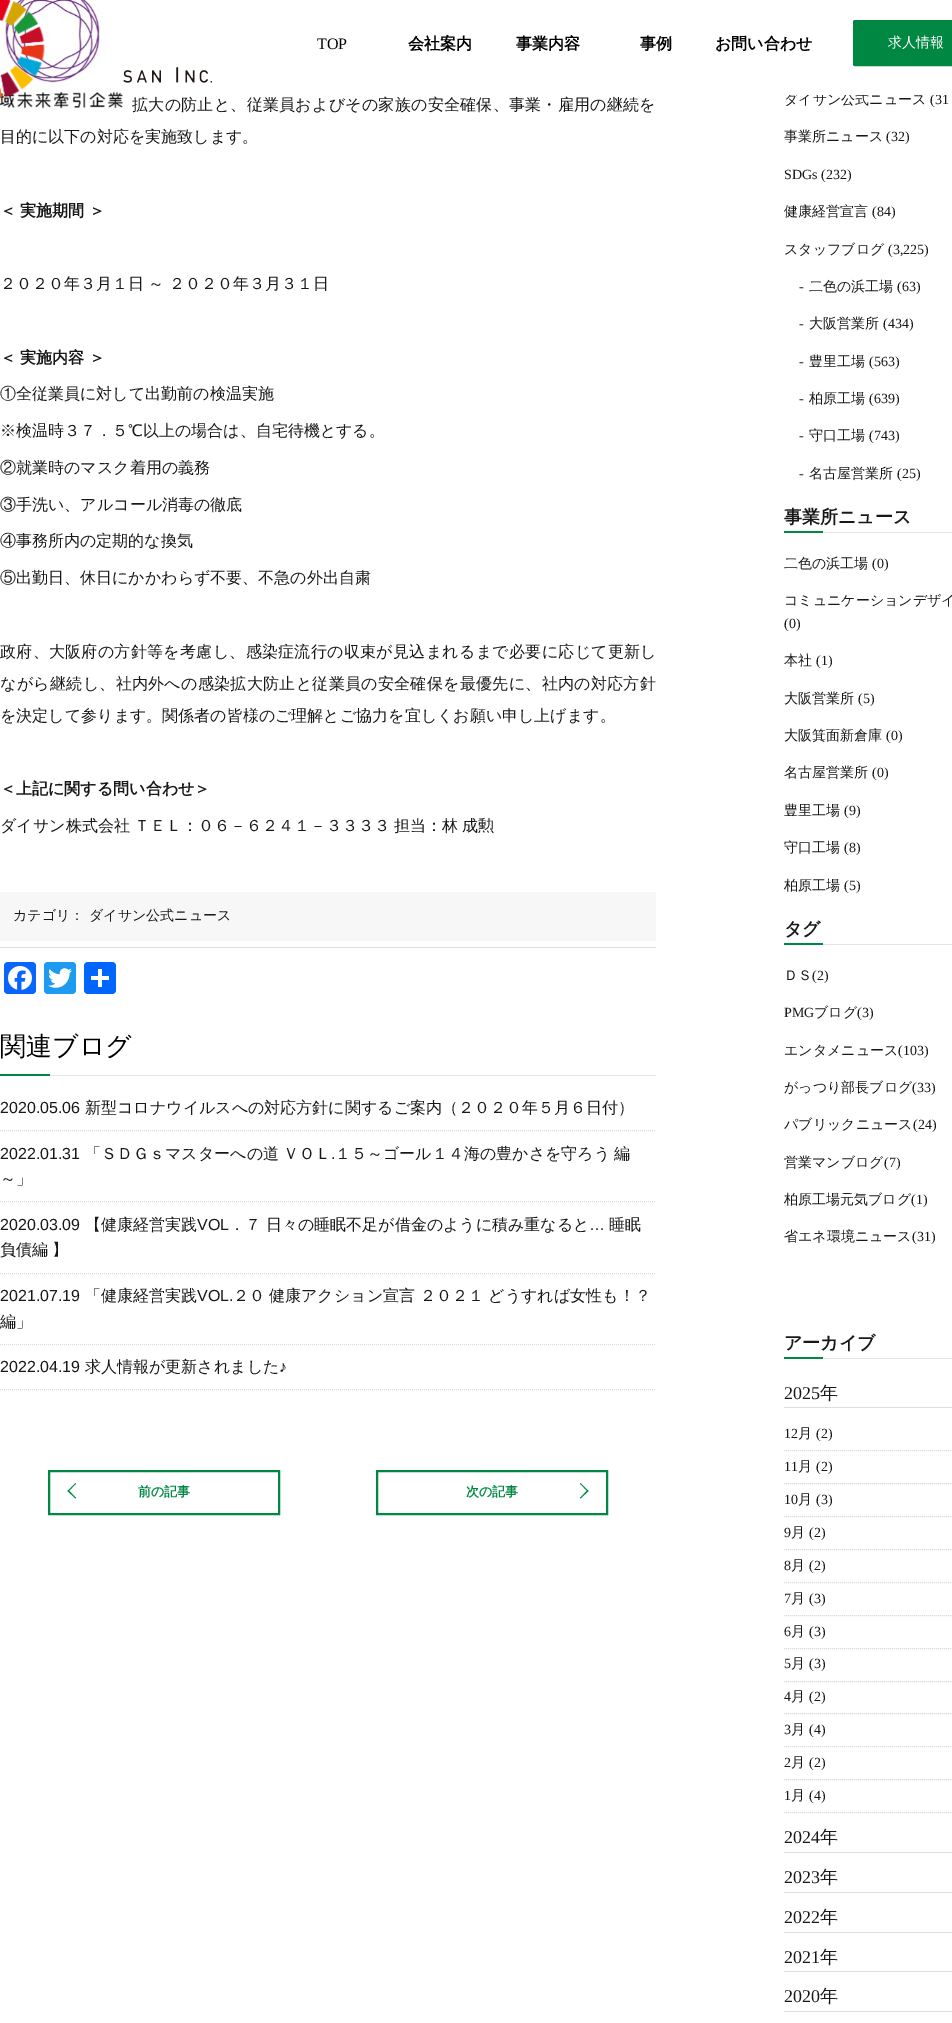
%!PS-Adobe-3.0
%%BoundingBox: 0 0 952 2023
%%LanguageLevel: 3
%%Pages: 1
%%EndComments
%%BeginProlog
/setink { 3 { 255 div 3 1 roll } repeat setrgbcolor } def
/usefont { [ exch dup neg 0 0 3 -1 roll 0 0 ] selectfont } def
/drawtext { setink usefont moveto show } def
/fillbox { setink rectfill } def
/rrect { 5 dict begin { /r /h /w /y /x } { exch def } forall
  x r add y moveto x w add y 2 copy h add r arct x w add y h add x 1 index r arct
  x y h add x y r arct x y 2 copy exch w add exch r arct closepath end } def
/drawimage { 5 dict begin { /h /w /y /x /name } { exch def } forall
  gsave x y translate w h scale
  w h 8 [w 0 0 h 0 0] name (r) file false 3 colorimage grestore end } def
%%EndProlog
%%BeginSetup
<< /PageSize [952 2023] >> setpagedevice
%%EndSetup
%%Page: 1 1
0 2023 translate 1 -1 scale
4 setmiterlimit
0 0 952 2023 255 255 255 fillbox
(ダイサン公式ニュース) 784 104 /WenQuanYiZenHei-Medium 14 24 24 24 drawtext
(\(31) 930 104 /LiberationSerif-Regular 14 24 24 24 drawtext
789 92 157 3 255 255 255 fillbox
(assets/img1.rgb) 0 0 123 109 drawimage
(assets/img2.rgb) 0 0 45 98 drawimage
(TOP) 317 49 /LiberationSerif-Regular 16 0 0 0 drawtext
(会社案内) 408 49 /WenQuanYiZenHei-Bold 16 0 0 0 drawtext
(事業内容) 516 49 /WenQuanYiZenHei-Bold 16 0 0 0 drawtext
(事例) 640 49 /WenQuanYiZenHei-Bold 16 0 0 0 drawtext
(お問い合わせ) 715 49 /WenQuanYiZenHei-Bold 16 0 0 0 drawtext
0 136 66 setink
853.5 20.5 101 45 1.5 rrect gsave fill grestore
stroke
(求人情報) 888 47 /WenQuanYiZenHei-Medium 14 255 255 255 drawtext
(assets/img3.rgb) 123 67 89 16 drawimage
/WenQuanYiZenHei-Medium 16 usefont
24 24 24 setink
132 110 moveto 0.25 0 (拡大の防止と、従業員およびその家族の安全確保、事業・雇用の継続を) ashow
(目的に以下の対応を実施致します。) 0 142 /WenQuanYiZenHei-Medium 16 24 24 24 drawtext
/WenQuanYiZenHei-Bold 16 usefont
0 216 moveto -0.5 0 32 (＜ 実施期間 ＞) widthshow
/WenQuanYiZenHei-Medium 16 usefont
0 289 moveto -0.5 0 32 (２０２０年３月１日 ～ ２０２０年３月３１日) widthshow
/WenQuanYiZenHei-Bold 16 usefont
0 363 moveto -0.5 0 32 (＜ 実施内容 ＞) widthshow
(①全従業員に対して出勤前の検温実施) 0 399 /WenQuanYiZenHei-Medium 16 24 24 24 drawtext
(※検温時３７．５℃以上の場合は、自宅待機とする。) 0 436 /WenQuanYiZenHei-Medium 16 24 24 24 drawtext
(②就業時のマスク着用の義務) 0 473 /WenQuanYiZenHei-Medium 16 24 24 24 drawtext
(③手洗い、アルコール消毒の徹底) 0 510 /WenQuanYiZenHei-Medium 16 24 24 24 drawtext
(④事務所内の定期的な換気) 0 546 /WenQuanYiZenHei-Medium 16 24 24 24 drawtext
(⑤出勤日、休日にかかわらず不要、不急の外出自粛) 0 583 /WenQuanYiZenHei-Medium 16 24 24 24 drawtext
0 657 moveto 0.3 0 (政府、大阪府の方針等を考慮し、感染症流行の収束が見込まれるまで必要に応じて更新し) ashow
0 689 moveto 0.3 0 (ながら継続し、社内外への感染拡大防止と従業員の安全確保を最優先に、社内の対応方針) ashow
(を決定して参ります。関係者の皆様のご理解とご協力を宜しくお願い申し上げます。) 0 721 /WenQuanYiZenHei-Medium 16 24 24 24 drawtext
(＜上記に関する問い合わせ＞) 0 794 /WenQuanYiZenHei-Bold 16 24 24 24 drawtext
/WenQuanYiZenHei-Medium 16 usefont
0 831 moveto -0.5 0 32 (ダイサン株式会社 ＴＥＬ：０６－６２４１－３３３３ 担当：林 成勲) widthshow
0 892 656 49 247 247 247 fillbox
(カテゴリ：) 13 920 /WenQuanYiZenHei-Medium 14 24 24 24 drawtext
(ダイサン公式ニュース) 89 920 /WenQuanYiZenHei-Medium 14 24 24 24 drawtext
0 947 656 1 221 221 221 fillbox
8 102 255 setink
4 962 32 32 4 rrect fill
(assets/img4.rgb) 8 966 24 24 drawimage
29 155 240 setink
44 962 32 32 4 rrect fill
(assets/img5.rgb) 48 968 24 20 drawimage
1 102 255 setink
84 962 32 32 4 rrect fill
98 969 4 18 255 255 255 fillbox
91 976 18 4 255 255 255 fillbox
50 1075 606 1 229 229 229 fillbox
(関連ブログ) 0 1055 /WenQuanYiZenHei-Medium 26 0 0 0 drawtext
0 1074 50 2 0 136 66 fillbox
221 221 221 setink
[1 1] 0 setdash
0 1130.5 moveto 656 1130.5 lineto stroke
(2020.05.06) 0 1113 /LiberationSans-Regular 16 24 24 24 drawtext
(新型コロナウイルスへの対応方針に関するご案内（２０２０年５月６日付）) 85 1113 /WenQuanYiZenHei-Medium 16 24 24 24 drawtext
221 221 221 setink
0 1201.5 moveto 656 1201.5 lineto stroke
(2022.01.31) 0 1159 /LiberationSans-Regular 16 24 24 24 drawtext
/WenQuanYiZenHei-Medium 16 usefont
85 1159 moveto -0.5 0 32 (「ＳＤＧｓマスターへの道 ＶＯＬ) widthshow
(.) 331 1159 /LiberationSans-Regular 16 24 24 24 drawtext
/WenQuanYiZenHei-Medium 16 usefont
335 1159 moveto -0.5 0 32 (１５～ゴール１４海の豊かさを守ろう 編) widthshow
(～」) 0 1184 /WenQuanYiZenHei-Medium 16 24 24 24 drawtext
221 221 221 setink
0 1273.5 moveto 656 1273.5 lineto stroke
(2020.03.09) 0 1230 /LiberationSans-Regular 16 24 24 24 drawtext
(【健康経営実践) 85 1230 /WenQuanYiZenHei-Medium 16 24 24 24 drawtext
(VOL) 197 1230 /LiberationSans-Regular 16 24 24 24 drawtext
(．７ 日々の睡眠不足が借金のように積み重なると) 229 1230 /WenQuanYiZenHei-Medium 16 24 24 24 drawtext
(…) 589 1230 /LiberationSans-Regular 16 24 24 24 drawtext
(睡眠) 609 1230 /WenQuanYiZenHei-Medium 16 24 24 24 drawtext
0 1255 moveto -0.5 0 32 (負債編 】) widthshow
221 221 221 setink
0 1344.5 moveto 656 1344.5 lineto stroke
(2021.07.19) 0 1301 /LiberationSans-Regular 16 24 24 24 drawtext
(「健康経営実践) 85 1301 /WenQuanYiZenHei-Medium 16 24 24 24 drawtext
(VOL.) 197 1301 /LiberationSans-Regular 16 24 24 24 drawtext
(２０) 233 1301 /WenQuanYiZenHei-Medium 16 24 24 24 drawtext
(健康アクション宣言) 269 1301 /WenQuanYiZenHei-Medium 16 24 24 24 drawtext
420 1301 moveto -0.5 0 32 (２０２１ どうすれば女性も！？) widthshow
(編」) 0 1327 /WenQuanYiZenHei-Medium 16 24 24 24 drawtext
221 221 221 setink
0 1389.5 moveto 656 1389.5 lineto stroke
(2022.04.19) 0 1372 /LiberationSans-Regular 16 24 24 24 drawtext
(求人情報が更新されました) 85 1372 /WenQuanYiZenHei-Medium 16 24 24 24 drawtext
(♪) 279 1372 /LiberationSans-Regular 16 24 24 24 drawtext
0 136 66 setink
2 setlinewidth
[] 0 setdash
49 1471 230 43 rectstroke
75.5 1498.5 moveto 67.5 1491 lineto 68.5 1490 lineto 76 1498 lineto closepath fill
68.5 1491.5 moveto 67.5 1491 lineto 75.5 1483 lineto 76 1483.5 lineto closepath fill
(前の記事) 138 1496 /WenQuanYiZenHei-Bold 13 0 136 66 drawtext
377 1471 230 43 rectstroke
(次の記事) 466 1496 /WenQuanYiZenHei-Bold 13 0 136 66 drawtext
580.5 1483 moveto 588.5 1491 lineto 587.5 1491.5 lineto 580 1483.5 lineto closepath fill
587.5 1490 moveto 588.5 1491 lineto 580.5 1498.5 lineto 580 1498 lineto closepath fill
(事業所ニュース) 784 141 /WenQuanYiZenHei-Medium 14 24 24 24 drawtext
(\(32\)) 886 141 /LiberationSerif-Regular 14 24 24 24 drawtext
(SDGs \(232\)) 784 179 /LiberationSerif-Regular 14 24 24 24 drawtext
(健康経営宣言) 784 216 /WenQuanYiZenHei-Medium 14 24 24 24 drawtext
(\(84\)) 872 216 /LiberationSerif-Regular 14 24 24 24 drawtext
(スタッフブログ) 784 254 /WenQuanYiZenHei-Medium 14 24 24 24 drawtext
(\(3,225\)) 888 254 /LiberationSerif-Regular 14 24 24 24 drawtext
(-) 799 291 /LiberationSerif-Regular 14 24 24 24 drawtext
(二色の浜工場) 809 291 /WenQuanYiZenHei-Medium 14 24 24 24 drawtext
(\(63\)) 897 291 /LiberationSerif-Regular 14 24 24 24 drawtext
(-) 799 328 /LiberationSerif-Regular 14 24 24 24 drawtext
(大阪営業所) 809 328 /WenQuanYiZenHei-Medium 14 24 24 24 drawtext
(\(434\)) 883 328 /LiberationSerif-Regular 14 24 24 24 drawtext
(-) 799 366 /LiberationSerif-Regular 14 24 24 24 drawtext
(豊里工場) 809 366 /WenQuanYiZenHei-Medium 14 24 24 24 drawtext
(\(563\)) 869 366 /LiberationSerif-Regular 14 24 24 24 drawtext
(-) 799 403 /LiberationSerif-Regular 14 24 24 24 drawtext
(柏原工場) 809 403 /WenQuanYiZenHei-Medium 14 24 24 24 drawtext
(\(639\)) 869 403 /LiberationSerif-Regular 14 24 24 24 drawtext
(-) 799 440 /LiberationSerif-Regular 14 24 24 24 drawtext
(守口工場) 809 440 /WenQuanYiZenHei-Medium 14 24 24 24 drawtext
(\(743\)) 869 440 /LiberationSerif-Regular 14 24 24 24 drawtext
(-) 799 478 /LiberationSerif-Regular 14 24 24 24 drawtext
(名古屋営業所) 809 478 /WenQuanYiZenHei-Medium 14 24 24 24 drawtext
(\(25\)) 897 478 /LiberationSerif-Regular 14 24 24 24 drawtext
823 532 129 1 229 229 229 fillbox
(事業所ニュース) 784 523 /WenQuanYiZenHei-Bold 18 24 24 24 drawtext
784 531 39 2 0 136 66 fillbox
(二色の浜工場) 784 568 /WenQuanYiZenHei-Medium 14 24 24 24 drawtext
(\(0\)) 872 568 /LiberationSerif-Regular 14 24 24 24 drawtext
(コミュニケーションデザイ) 784 605 /WenQuanYiZenHei-Medium 14 24 24 24 drawtext
(\(0\)) 784 628 /LiberationSerif-Regular 14 24 24 24 drawtext
(本社) 784 665 /WenQuanYiZenHei-Medium 14 24 24 24 drawtext
(\(1\)) 816 665 /LiberationSerif-Regular 14 24 24 24 drawtext
(大阪営業所) 784 703 /WenQuanYiZenHei-Medium 14 24 24 24 drawtext
(\(5\)) 858 703 /LiberationSerif-Regular 14 24 24 24 drawtext
(大阪箕面新倉庫) 784 740 /WenQuanYiZenHei-Medium 14 24 24 24 drawtext
(\(0\)) 886 740 /LiberationSerif-Regular 14 24 24 24 drawtext
(名古屋営業所) 784 777 /WenQuanYiZenHei-Medium 14 24 24 24 drawtext
(\(0\)) 872 777 /LiberationSerif-Regular 14 24 24 24 drawtext
(豊里工場) 784 815 /WenQuanYiZenHei-Medium 14 24 24 24 drawtext
(\(9\)) 844 815 /LiberationSerif-Regular 14 24 24 24 drawtext
(守口工場) 784 852 /WenQuanYiZenHei-Medium 14 24 24 24 drawtext
(\(8\)) 844 852 /LiberationSerif-Regular 14 24 24 24 drawtext
(柏原工場) 784 890 /WenQuanYiZenHei-Medium 14 24 24 24 drawtext
(\(5\)) 844 890 /LiberationSerif-Regular 14 24 24 24 drawtext
823 944 129 1 229 229 229 fillbox
(タグ) 784 935 /WenQuanYiZenHei-Bold 18 24 24 24 drawtext
784 943 39 2 0 136 66 fillbox
(ＤＳ) 784 980 /WenQuanYiZenHei-Medium 14 24 24 24 drawtext
(\(2\)) 812 980 /LiberationSerif-Regular 14 24 24 24 drawtext
(PMG) 784 1017 /LiberationSerif-Regular 14 24 24 24 drawtext
(ブログ) 814 1017 /WenQuanYiZenHei-Medium 14 24 24 24 drawtext
(\(3\)) 857 1017 /LiberationSerif-Regular 14 24 24 24 drawtext
(エンタメニュース) 784 1055 /WenQuanYiZenHei-Medium 14 24 24 24 drawtext
(\(103\)) 898 1055 /LiberationSerif-Regular 14 24 24 24 drawtext
(がっつり部長ブログ) 784 1092 /WenQuanYiZenHei-Medium 14 24 24 24 drawtext
(\(33\)) 912 1092 /LiberationSerif-Regular 14 24 24 24 drawtext
(パブリックニュース) 784 1129 /WenQuanYiZenHei-Medium 14 24 24 24 drawtext
(\(24\)) 913 1129 /LiberationSerif-Regular 14 24 24 24 drawtext
(営業マンブログ) 784 1167 /WenQuanYiZenHei-Medium 14 24 24 24 drawtext
(\(7\)) 884 1167 /LiberationSerif-Regular 14 24 24 24 drawtext
(柏原工場元気ブログ) 784 1204 /WenQuanYiZenHei-Medium 14 24 24 24 drawtext
(\(1\)) 911 1204 /LiberationSerif-Regular 14 24 24 24 drawtext
(省エネ環境ニュース) 784 1241 /WenQuanYiZenHei-Medium 14 24 24 24 drawtext
(\(31\)) 912 1241 /LiberationSerif-Regular 14 24 24 24 drawtext
823 1358 129 1 229 229 229 fillbox
(アーカイブ) 784 1349 /WenQuanYiZenHei-Bold 18 24 24 24 drawtext
784 1357 39 2 0 136 66 fillbox
784 1407 168 1 221 221 221 fillbox
(2025) 784 1399 /LiberationSerif-Regular 18 24 24 24 drawtext
(年) 820 1399 /WenQuanYiZenHei-Medium 18 24 24 24 drawtext
221 221 221 setink
1 setlinewidth
[1 1] 0 setdash
784 1450.5 moveto 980 1450.5 lineto stroke
(12) 784 1438 /LiberationSerif-Regular 14 24 24 24 drawtext
(月) 798 1438 /WenQuanYiZenHei-Medium 14 24 24 24 drawtext
(\(2\)) 816 1438 /LiberationSerif-Regular 14 24 24 24 drawtext
221 221 221 setink
784 1483.5 moveto 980 1483.5 lineto stroke
(11) 784 1471 /LiberationSerif-Regular 14 24 24 24 drawtext
(月) 798 1471 /WenQuanYiZenHei-Medium 14 24 24 24 drawtext
(\(2\)) 816 1471 /LiberationSerif-Regular 14 24 24 24 drawtext
221 221 221 setink
784 1516.5 moveto 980 1516.5 lineto stroke
(10) 784 1504 /LiberationSerif-Regular 14 24 24 24 drawtext
(月) 798 1504 /WenQuanYiZenHei-Medium 14 24 24 24 drawtext
(\(3\)) 816 1504 /LiberationSerif-Regular 14 24 24 24 drawtext
221 221 221 setink
784 1549.5 moveto 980 1549.5 lineto stroke
(9) 784 1537 /LiberationSerif-Regular 14 24 24 24 drawtext
(月) 791 1537 /WenQuanYiZenHei-Medium 14 24 24 24 drawtext
(\(2\)) 809 1537 /LiberationSerif-Regular 14 24 24 24 drawtext
221 221 221 setink
784 1582.5 moveto 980 1582.5 lineto stroke
(8) 784 1570 /LiberationSerif-Regular 14 24 24 24 drawtext
(月) 791 1570 /WenQuanYiZenHei-Medium 14 24 24 24 drawtext
(\(2\)) 809 1570 /LiberationSerif-Regular 14 24 24 24 drawtext
221 221 221 setink
784 1615.5 moveto 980 1615.5 lineto stroke
(7) 784 1603 /LiberationSerif-Regular 14 24 24 24 drawtext
(月) 791 1603 /WenQuanYiZenHei-Medium 14 24 24 24 drawtext
(\(3\)) 809 1603 /LiberationSerif-Regular 14 24 24 24 drawtext
221 221 221 setink
784 1648.5 moveto 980 1648.5 lineto stroke
(6) 784 1636 /LiberationSerif-Regular 14 24 24 24 drawtext
(月) 791 1636 /WenQuanYiZenHei-Medium 14 24 24 24 drawtext
(\(3\)) 809 1636 /LiberationSerif-Regular 14 24 24 24 drawtext
221 221 221 setink
784 1681.5 moveto 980 1681.5 lineto stroke
(5) 784 1668 /LiberationSerif-Regular 14 24 24 24 drawtext
(月) 791 1668 /WenQuanYiZenHei-Medium 14 24 24 24 drawtext
(\(3\)) 809 1668 /LiberationSerif-Regular 14 24 24 24 drawtext
221 221 221 setink
784 1713.5 moveto 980 1713.5 lineto stroke
(4) 784 1701 /LiberationSerif-Regular 14 24 24 24 drawtext
(月) 791 1701 /WenQuanYiZenHei-Medium 14 24 24 24 drawtext
(\(2\)) 809 1701 /LiberationSerif-Regular 14 24 24 24 drawtext
221 221 221 setink
784 1746.5 moveto 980 1746.5 lineto stroke
(3) 784 1734 /LiberationSerif-Regular 14 24 24 24 drawtext
(月) 791 1734 /WenQuanYiZenHei-Medium 14 24 24 24 drawtext
(\(4\)) 809 1734 /LiberationSerif-Regular 14 24 24 24 drawtext
221 221 221 setink
784 1779.5 moveto 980 1779.5 lineto stroke
(2) 784 1767 /LiberationSerif-Regular 14 24 24 24 drawtext
(月) 791 1767 /WenQuanYiZenHei-Medium 14 24 24 24 drawtext
(\(2\)) 809 1767 /LiberationSerif-Regular 14 24 24 24 drawtext
221 221 221 setink
784 1812.5 moveto 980 1812.5 lineto stroke
(1) 784 1800 /LiberationSerif-Regular 14 24 24 24 drawtext
(月) 791 1800 /WenQuanYiZenHei-Medium 14 24 24 24 drawtext
(\(4\)) 809 1800 /LiberationSerif-Regular 14 24 24 24 drawtext
784 1852 168 1 221 221 221 fillbox
(2024) 784 1843 /LiberationSerif-Regular 18 24 24 24 drawtext
(年) 820 1843 /WenQuanYiZenHei-Medium 18 24 24 24 drawtext
784 1892 168 1 221 221 221 fillbox
(2023) 784 1883 /LiberationSerif-Regular 18 24 24 24 drawtext
(年) 820 1883 /WenQuanYiZenHei-Medium 18 24 24 24 drawtext
784 1932 168 1 221 221 221 fillbox
(2022) 784 1923 /LiberationSerif-Regular 18 24 24 24 drawtext
(年) 820 1923 /WenQuanYiZenHei-Medium 18 24 24 24 drawtext
784 1971 168 1 221 221 221 fillbox
(2021) 784 1963 /LiberationSerif-Regular 18 24 24 24 drawtext
(年) 820 1963 /WenQuanYiZenHei-Medium 18 24 24 24 drawtext
784 2011 168 1 221 221 221 fillbox
(2020) 784 2002 /LiberationSerif-Regular 18 24 24 24 drawtext
(年) 820 2002 /WenQuanYiZenHei-Medium 18 24 24 24 drawtext
showpage
%%EOF
